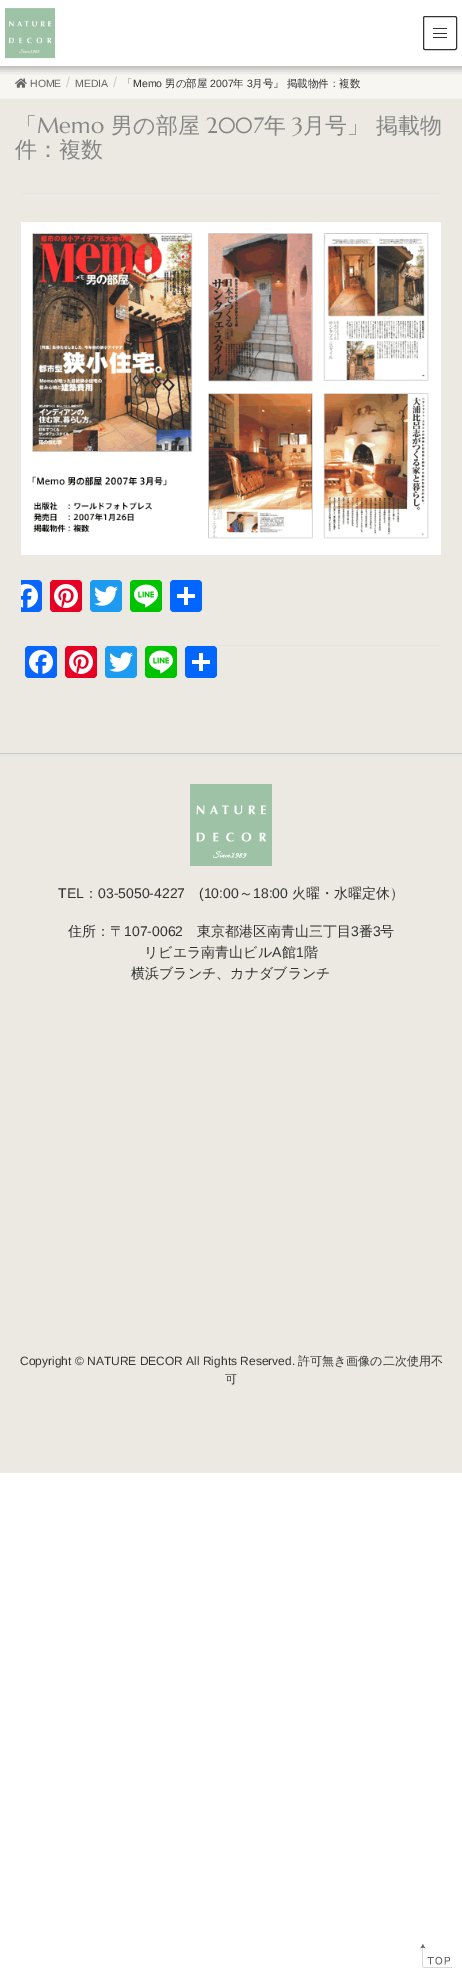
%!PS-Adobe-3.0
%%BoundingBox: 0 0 462 1985
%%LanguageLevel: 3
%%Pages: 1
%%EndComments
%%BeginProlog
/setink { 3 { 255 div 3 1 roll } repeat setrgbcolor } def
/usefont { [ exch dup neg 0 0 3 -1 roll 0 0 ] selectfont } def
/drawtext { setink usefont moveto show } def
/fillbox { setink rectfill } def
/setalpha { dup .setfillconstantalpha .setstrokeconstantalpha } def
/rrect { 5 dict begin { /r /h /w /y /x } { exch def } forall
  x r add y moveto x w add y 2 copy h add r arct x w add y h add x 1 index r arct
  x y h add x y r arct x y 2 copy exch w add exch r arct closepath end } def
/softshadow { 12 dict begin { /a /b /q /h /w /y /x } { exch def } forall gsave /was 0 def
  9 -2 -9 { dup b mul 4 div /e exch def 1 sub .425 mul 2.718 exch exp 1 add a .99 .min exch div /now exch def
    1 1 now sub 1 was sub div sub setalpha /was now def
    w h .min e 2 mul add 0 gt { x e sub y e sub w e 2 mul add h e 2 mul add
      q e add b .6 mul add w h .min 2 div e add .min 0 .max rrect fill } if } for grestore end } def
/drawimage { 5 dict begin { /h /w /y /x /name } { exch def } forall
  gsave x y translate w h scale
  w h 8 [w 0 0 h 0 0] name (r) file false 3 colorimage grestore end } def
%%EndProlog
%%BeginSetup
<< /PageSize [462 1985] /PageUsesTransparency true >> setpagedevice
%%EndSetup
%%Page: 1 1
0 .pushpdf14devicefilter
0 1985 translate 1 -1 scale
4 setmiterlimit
0 0 462 1985 255 255 255 fillbox
0 66 462 32 247 246 243 fillbox
(assets/img2.rgb) 15 78 12 10 drawimage
gsave
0 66 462 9 rectclip
0 0 0 setink
-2 -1 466 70 0 4 0.3 softshadow
grestore
(assets/img1.rgb) 5 8 50 51 drawimage
433 28 14 1 51 51 51 fillbox
433 33 14 1 51 51 51 fillbox
433 37 14 1 51 51 51 fillbox
423.5 16.5 33 33 1.5 rrect stroke
0 98 462 1 243 243 243 fillbox
(HOME) 30 87 /LiberationSans-Regular 10.5 102 102 102 drawtext
(/) 66 87 /LiberationSans-Regular 14 204 204 204 drawtext
(MEDIA) 75 87 /LiberationSans-Regular 10.5 102 102 102 drawtext
(/) 113 87 /LiberationSans-Regular 14 204 204 204 drawtext
(「) 122 87 /WenQuanYiZenHei-Medium 10.5 51 51 51 drawtext
(Memo) 133 87 /LiberationSans-Regular 10.5 51 51 51 drawtext
(男の部屋) 165 87 /WenQuanYiZenHei-Medium 10.5 51 51 51 drawtext
(2007) 210 87 /LiberationSans-Regular 10.5 51 51 51 drawtext
(年) 233 87 /WenQuanYiZenHei-Medium 10.5 51 51 51 drawtext
(3) 247 87 /LiberationSans-Regular 10.5 51 51 51 drawtext
(月号」 掲載物件：複数) 252 87 /WenQuanYiZenHei-Medium 10.5 51 51 51 drawtext
0 99 462 654 236 233 226 fillbox
(「) 15 133 /WenQuanYiZenHei-Medium 22 134 134 135 drawtext
(Memo) 37 133 /Marcellus-Regular 22 134 134 135 drawtext
(男の部屋) 111 133 /WenQuanYiZenHei-Medium 22 134 134 135 drawtext
(2007) 206 133 /Marcellus-Regular 22 134 134 135 drawtext
(年) 264 133 /WenQuanYiZenHei-Medium 22 134 134 135 drawtext
(3) 292 133 /Marcellus-Regular 22 134 134 135 drawtext
(月号」 掲載物) 303 133 /WenQuanYiZenHei-Medium 22 134 134 135 drawtext
(件：複数) 15 157 /WenQuanYiZenHei-Medium 22 134 134 135 drawtext
21 193 420 1 229 229 229 fillbox
21 645 420 1 229 229 229 fillbox
(assets/img3.rgb) 21 222 420 333 drawimage
8 102 255 setink
21 580 moveto 38 580 lineto 40 580 42 582 42 584 curveto 42 608 lineto 42 610 40 612 38 612 curveto 21 612 lineto closepath fill
(assets/img4.rgb) 21 584 17 24 drawimage
230 0 35 setink
50 580 32 32 4 rrect fill
(assets/img5.rgb) 54 584 24 24 drawimage
29 155 240 setink
90 580 32 32 4 rrect fill
(assets/img6.rgb) 94 586 24 20 drawimage
0 195 0 setink
130 580 32 32 4 rrect fill
(assets/img7.rgb) 134 584 24 24 drawimage
1 102 255 setink
170 580 32 32 4 rrect fill
184 587 4 18 255 255 255 fillbox
177 594 18 4 255 255 255 fillbox
8 102 255 setink
25 646 32 32 4 rrect fill
(assets/img8.rgb) 29 650 24 24 drawimage
230 0 35 setink
65 646 32 32 4 rrect fill
(assets/img5.rgb) 69 650 24 24 drawimage
29 155 240 setink
105 646 32 32 4 rrect fill
(assets/img6.rgb) 109 652 24 20 drawimage
0 195 0 setink
145 646 32 32 4 rrect fill
(assets/img7.rgb) 149 650 24 24 drawimage
1 102 255 setink
185 646 32 32 4 rrect fill
199 653 4 18 255 255 255 fillbox
192 660 18 4 255 255 255 fillbox
0 756 462 717 236 233 226 fillbox
0 753 462 1 204 205 192 fillbox
0 754 462 2 229 229 229 fillbox
(assets/img9.rgb) 190 784 82 82 drawimage
(TEL) 58 898 /LiberationSans-Regular 14 51 51 51 drawtext
(：) 84 898 /WenQuanYiZenHei-Medium 14 51 51 51 drawtext
(03-5050-4227) 98 898 /LiberationSans-Regular 14 51 51 51 drawtext
(\(10:00) 199 898 /LiberationSans-Regular 14 51 51 51 drawtext
(～) 239 898 /WenQuanYiZenHei-Medium 14 51 51 51 drawtext
(18:00) 253 898 /LiberationSans-Regular 14 51 51 51 drawtext
(火曜・水曜定休）) 292 898 /WenQuanYiZenHei-Medium 14 51 51 51 drawtext
(住所：〒) 68 936 /WenQuanYiZenHei-Medium 14 51 51 51 drawtext
(107-0062) 124 936 /LiberationSans-Regular 14 51 51 51 drawtext
(東京都港区南青山三丁目) 197 936 /WenQuanYiZenHei-Medium 14 51 51 51 drawtext
(3) 351 936 /LiberationSans-Regular 14 51 51 51 drawtext
(番) 359 936 /WenQuanYiZenHei-Medium 14 51 51 51 drawtext
(3) 373 936 /LiberationSans-Regular 14 51 51 51 drawtext
(号) 380 936 /WenQuanYiZenHei-Medium 14 51 51 51 drawtext
(リビエラ南青山ビル) 144 957 /WenQuanYiZenHei-Medium 14 51 51 51 drawtext
(A) 272 957 /LiberationSans-Regular 14 51 51 51 drawtext
(館) 282 957 /WenQuanYiZenHei-Medium 14 51 51 51 drawtext
(1) 296 957 /LiberationSans-Regular 14 51 51 51 drawtext
(階) 304 957 /WenQuanYiZenHei-Medium 14 51 51 51 drawtext
(横浜ブランチ、カナダブランチ) 131 978 /WenQuanYiZenHei-Medium 14 51 51 51 drawtext
(Copyright © NATURE DECOR All Rights Reserved.) 20 1365 /LiberationSans-Regular 12 51 51 51 drawtext
(許可無き画像の二次使用不) 298 1365 /WenQuanYiZenHei-Medium 12 51 51 51 drawtext
(可) 225 1383 /WenQuanYiZenHei-Medium 12 51 51 51 drawtext
(assets/img10.rgb) 420 1944 32 24 drawimage
.poppdf14devicefilter showpage
%%EOF
